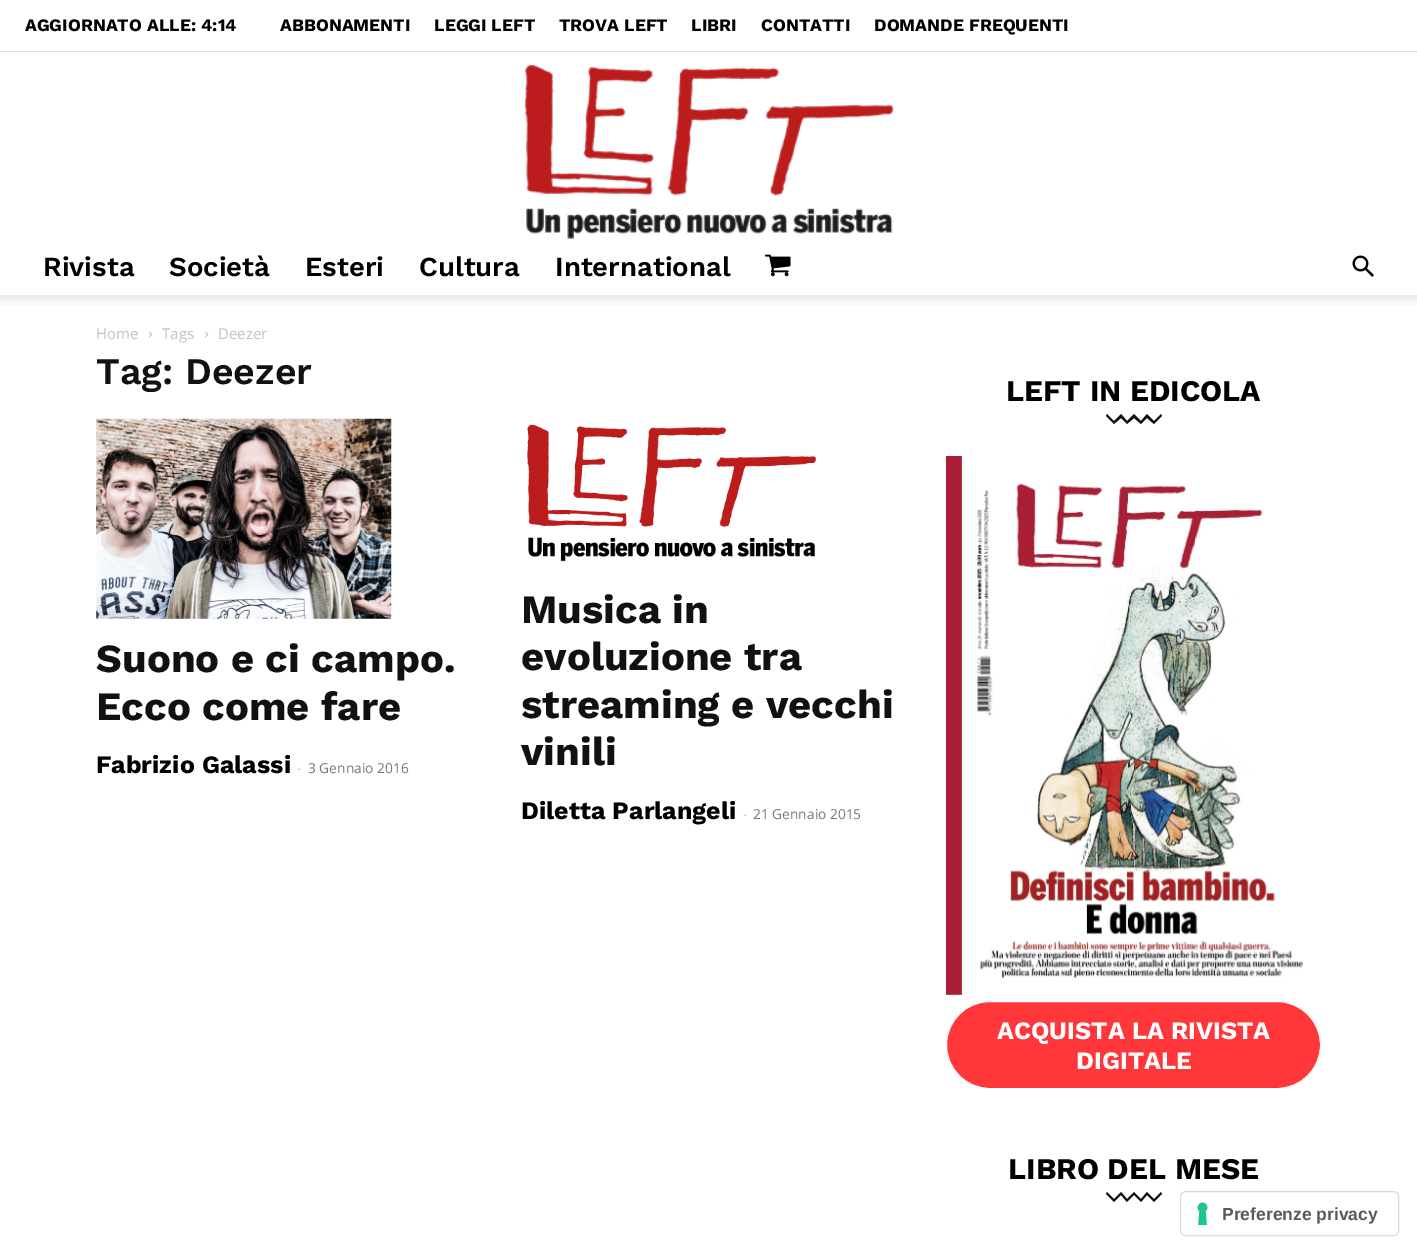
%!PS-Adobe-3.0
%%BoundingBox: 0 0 1417 1254
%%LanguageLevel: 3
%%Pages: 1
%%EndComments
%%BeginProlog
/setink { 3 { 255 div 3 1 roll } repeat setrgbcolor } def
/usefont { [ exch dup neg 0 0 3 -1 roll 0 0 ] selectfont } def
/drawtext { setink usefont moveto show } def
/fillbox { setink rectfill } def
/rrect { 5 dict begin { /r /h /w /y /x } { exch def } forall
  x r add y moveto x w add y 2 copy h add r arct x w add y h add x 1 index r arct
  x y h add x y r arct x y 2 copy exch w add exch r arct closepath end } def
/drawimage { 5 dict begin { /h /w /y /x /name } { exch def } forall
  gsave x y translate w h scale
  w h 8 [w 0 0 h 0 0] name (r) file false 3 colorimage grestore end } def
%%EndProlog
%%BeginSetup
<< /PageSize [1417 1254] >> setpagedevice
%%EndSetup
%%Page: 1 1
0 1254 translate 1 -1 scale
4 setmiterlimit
0 0 1417 1254 255 255 255 fillbox
0 51 1417 1 224 224 224 fillbox
(AGGIORNATO ALLE: 4:14) 25 31 /WorkSans-Bold 17.5 0 0 0 drawtext
(ABBONAMENTI) 280 31 /WorkSans-Bold 17.5 0 0 0 drawtext
(LEGGI LEFT) 434 31 /WorkSans-Bold 17.5 0 0 0 drawtext
(TROVA LEFT) 559 31 /WorkSans-Bold 17.5 0 0 0 drawtext
(LIBRI) 691 31 /WorkSans-Bold 17.5 0 0 0 drawtext
(CONTATTI) 761 31 /WorkSans-Bold 17.5 0 0 0 drawtext
(DOMANDE FREQUENTI) 874 31 /WorkSans-Bold 17.5 0 0 0 drawtext
(assets/img1.rgb) 524 64 370 175 drawimage
(Rivista) 43 276 /WorkSans-SemiBold 27.5 0 0 0 drawtext
(Società) 169 276 /WorkSans-SemiBold 27.5 0 0 0 drawtext
(Esteri) 305 276 /WorkSans-SemiBold 27.5 0 0 0 drawtext
(Cultura) 419 276 /WorkSans-SemiBold 27.5 0 0 0 drawtext
(International) 555 276 /WorkSans-SemiBold 27.5 0 0 0 drawtext
(assets/img2.rgb) 765 254 26 23 drawimage
(assets/img3.rgb) 1352 255 22 22 drawimage
(assets/img4.rgb) 0 295 1417 11 drawimage
(Home) 96 339 /OpenSans-Regular 15 195 195 195 drawtext
(assets/img5.rgb) 148 331 4 7 drawimage
(Tags) 162 339 /OpenSans-Regular 15 195 195 195 drawtext
(assets/img6.rgb) 205 331 4 7 drawimage
(Deezer) 218 339 /OpenSans-Regular 15 195 195 195 drawtext
(Tag: Deezer) 96 384 /WorkSans-SemiBold 37.5 17 17 17 drawtext
(assets/img7.rgb) 96 418 296 201 drawimage
(Suono e ci campo.) 96 672 /WorkSans-Bold 40 17 17 17 drawtext
(Ecco come fare) 96 720 /WorkSans-Bold 40 17 17 17 drawtext
(Fabrizio Galassi) 96 773 /WorkSans-Bold 25 0 0 0 drawtext
(-) 297 773 /OpenSans-Regular 13.75 204 204 204 drawtext
(3 Gennaio 2016) 308 773 /OpenSans-Regular 13.75 118 118 118 drawtext
(assets/img8.rgb) 527 424 289 138 drawimage
(Musica in) 521 623 /WorkSans-Bold 40 17 17 17 drawtext
(evoluzione tra) 521 670 /WorkSans-Bold 40 17 17 17 drawtext
(streaming e vecchi) 521 718 /WorkSans-Bold 40 17 17 17 drawtext
(vinili) 521 765 /WorkSans-Bold 40 17 17 17 drawtext
(Diletta Parlangeli) 521 819 /WorkSans-Bold 25 0 0 0 drawtext
(-) 743 819 /OpenSans-Regular 13.75 204 204 204 drawtext
(21 Gennaio 2015) 753 819 /OpenSans-Regular 13.75 118 118 118 drawtext
(LEFT IN EDICOLA) 1006 401 /WorkSans-Bold 30 0 0 0 drawtext
17 17 17 setink
1162 416 moveto 1154 424 lineto 1147 418 lineto 1141 424 lineto 1134 418 lineto 1127 424 lineto 1121 418 lineto 1114 424 lineto 1106 416 lineto 1107 414 lineto 1114 421 lineto 1121 414 lineto 1127 421 lineto 1134 414 lineto 1141 421 lineto 1147 414 lineto 1154 421 lineto 1161 414 lineto closepath fill
(assets/img9.rgb) 946 456 357 539 drawimage
255 55 58 setink
946.5 1001.5 374 87 43.5 rrect gsave fill grestore
255 255 255 setink
stroke
(ACQUISTA LA RIVISTA) 997 1039 /WorkSans-Bold 25 255 255 255 drawtext
(DIGITALE) 1076 1069 /WorkSans-Bold 25 255 255 255 drawtext
(LIBRO DEL MESE) 1008 1179 /WorkSans-Bold 30 0 0 0 drawtext
17 17 17 setink
1162 1194 moveto 1154 1202 lineto 1147 1195 lineto 1141 1202 lineto 1134 1195 lineto 1127 1202 lineto 1121 1195 lineto 1114 1202 lineto 1106 1194 lineto 1107 1192 lineto 1114 1199 lineto 1121 1192 lineto 1127 1199 lineto 1134 1192 lineto 1141 1199 lineto 1147 1192 lineto 1154 1199 lineto 1161 1192 lineto closepath fill
217 217 217 setink
1180.5 1191.5 218 44 5.5 rrect stroke
255 255 255 setink
1181 1193 217 42 5 rrect fill
(assets/img10.rgb) 1197 1202 11 23 drawimage
(Preferenze privacy) 1222 1220 /LiberationSans-Bold 17.5 89 89 89 drawtext
showpage
%%EOF
